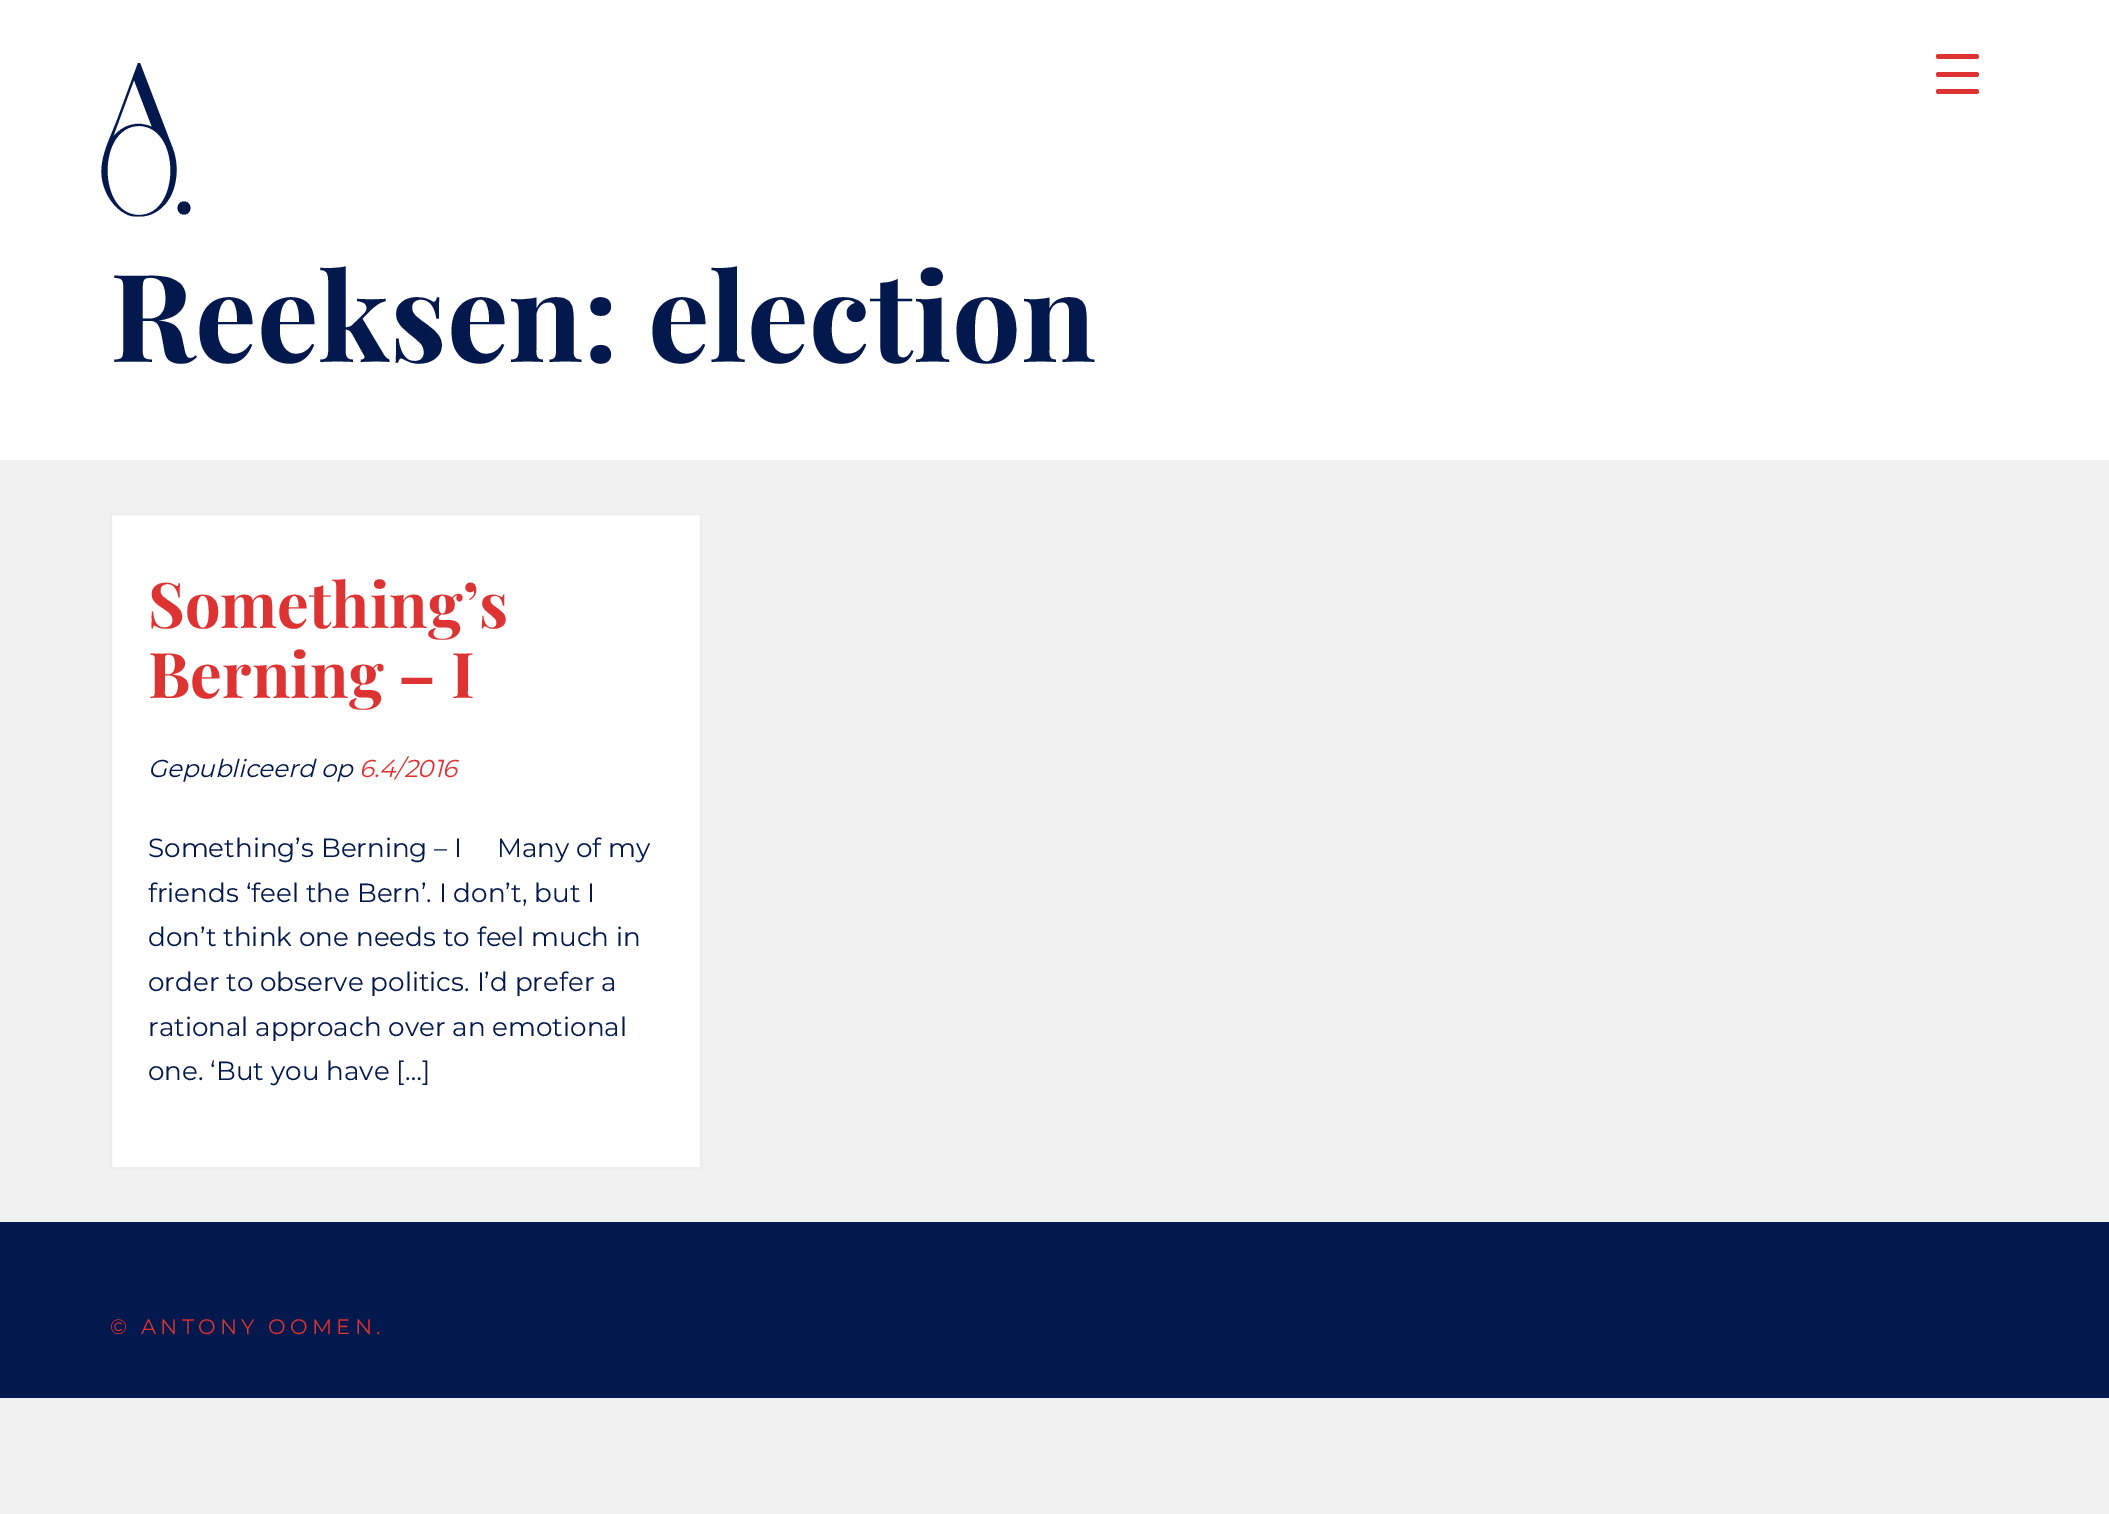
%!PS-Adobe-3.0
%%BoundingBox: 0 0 2109 1514
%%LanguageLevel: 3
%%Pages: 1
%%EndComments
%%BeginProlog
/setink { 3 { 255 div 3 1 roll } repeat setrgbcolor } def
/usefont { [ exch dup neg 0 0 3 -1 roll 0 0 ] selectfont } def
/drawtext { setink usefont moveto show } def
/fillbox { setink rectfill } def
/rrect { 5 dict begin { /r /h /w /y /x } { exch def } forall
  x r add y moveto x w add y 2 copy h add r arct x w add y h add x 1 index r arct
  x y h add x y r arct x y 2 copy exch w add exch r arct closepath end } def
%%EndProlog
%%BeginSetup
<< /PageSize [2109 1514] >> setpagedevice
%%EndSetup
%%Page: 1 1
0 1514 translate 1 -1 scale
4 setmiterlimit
0 0 2109 1514 241 241 241 fillbox
0 0 2109 460 255 255 255 fillbox
221 51 51 setink
1936 72 43 5 2.5 rrect fill
1936 54 43 5 2.5 rrect fill
1936 89 43 5 2.5 rrect fill
3 24 76 setink
173 149 moveto 140 63 lineto 138 63 lineto 117 120 lineto 107 146 93 169 108 196 curveto 113 205 121 213 131 216 curveto 139 217 147 217 154 213 curveto 176 202 181 171 173 149 curveto closepath 134 80 moveto 152 127 lineto 138 120 122 125 113 137 curveto closepath 139 215 moveto 97 215 97 126 139 126 curveto 181 126 181 215 139 215 curveto closepath fill
184 214.5 moveto 175.5 214.5 175.5 201.5 184 201.5 curveto 192.5 201.5 192.5 214.5 184 214.5 curveto closepath fill
(Reeksen: election) 110 362 /PlayfairDisplay-Bold 122.5 3 24 76 drawtext
255 255 255 setink
111 514 moveto 701 514 lineto 701 1168 lineto 111 1168 lineto closepath gsave fill grestore
237 237 237 setink
2 setlinewidth
stroke
(Something’s) 148 628 /PlayfairDisplay-Bold 63 221 51 51 drawtext
(Berning – I) 148 698 /PlayfairDisplay-Bold 63 221 51 51 drawtext
(Gepubliceerd op) 148 777 /Montserrat-Italic 24.5 3 24 76 drawtext
(6.4/2016) 359 777 /Montserrat-Italic 24.5 221 51 51 drawtext
(Something’s Berning – I     Many of my) 148 857 /Montserrat-Regular 26.25 3 24 76 drawtext
(friends ‘feel the Bern’. I don’t, but I) 148 902 /Montserrat-Regular 26.25 3 24 76 drawtext
(don’t think one needs to feel much in) 148 946 /Montserrat-Regular 26.25 3 24 76 drawtext
(order to observe politics. I’d prefer a) 148 991 /Montserrat-Regular 26.25 3 24 76 drawtext
(rational approach over an emotional) 148 1036 /Montserrat-Regular 26.25 3 24 76 drawtext
(one. ‘But you have […]) 148 1080 /Montserrat-Regular 26.25 3 24 76 drawtext
0 1222 2109 176 3 24 76 fillbox
/Montserrat-Regular 21 usefont
221 51 51 setink
110 1334 moveto 4.25 0 (© ANTONY OOMEN.) ashow
showpage
%%EOF
